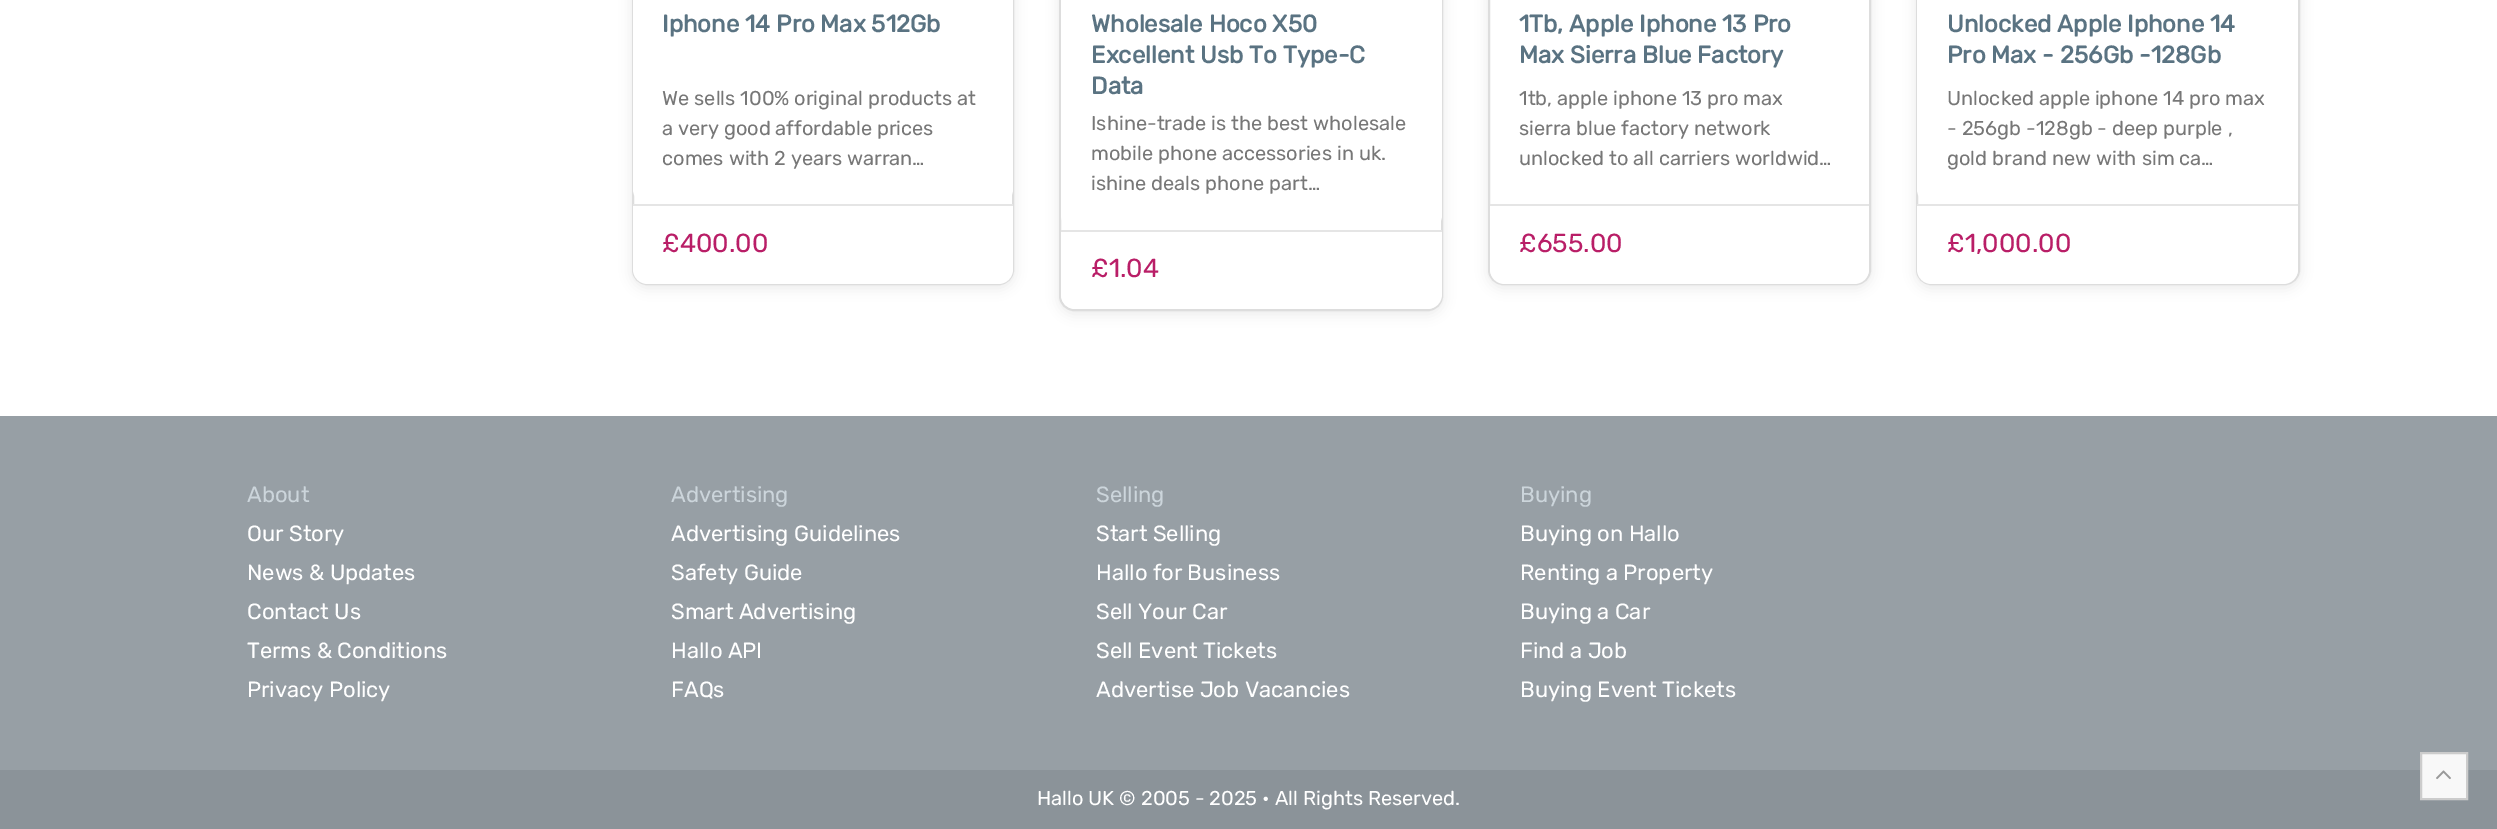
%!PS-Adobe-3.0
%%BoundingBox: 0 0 2497 829
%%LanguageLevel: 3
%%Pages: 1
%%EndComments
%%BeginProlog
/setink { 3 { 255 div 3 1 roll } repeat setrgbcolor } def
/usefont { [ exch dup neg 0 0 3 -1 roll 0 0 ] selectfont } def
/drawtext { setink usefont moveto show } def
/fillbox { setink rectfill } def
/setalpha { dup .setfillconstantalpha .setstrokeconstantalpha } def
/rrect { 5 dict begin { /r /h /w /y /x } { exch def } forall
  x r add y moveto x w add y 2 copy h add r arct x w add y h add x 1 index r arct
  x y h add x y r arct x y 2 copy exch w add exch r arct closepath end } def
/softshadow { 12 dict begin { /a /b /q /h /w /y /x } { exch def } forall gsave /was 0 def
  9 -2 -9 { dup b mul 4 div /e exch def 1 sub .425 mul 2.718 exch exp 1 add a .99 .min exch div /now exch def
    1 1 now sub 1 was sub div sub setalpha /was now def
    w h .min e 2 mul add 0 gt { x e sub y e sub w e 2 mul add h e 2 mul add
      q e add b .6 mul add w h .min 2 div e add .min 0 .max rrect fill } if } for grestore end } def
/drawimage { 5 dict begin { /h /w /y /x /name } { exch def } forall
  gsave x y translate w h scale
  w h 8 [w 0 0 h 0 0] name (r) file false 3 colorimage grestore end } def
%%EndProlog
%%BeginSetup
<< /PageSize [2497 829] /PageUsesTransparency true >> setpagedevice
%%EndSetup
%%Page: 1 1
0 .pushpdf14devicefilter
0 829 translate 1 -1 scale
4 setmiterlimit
0 0 2497 829 255 255 255 fillbox
0 0 0 setink
632 -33 382 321 15 6 0.08 softshadow
255 255 255 setink
633 -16 380 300 14 rrect gsave fill grestore
221 221 221 setink
2 setlinewidth
stroke
255 255 255 setink
633 -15 380 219 15 rrect fill
(Iphone 14 Pro Max 512Gb) 662 32 /Rubik-Bold 24 90 115 130 drawtext
(We sells 100% original products at) 662 105 /Rubik-Light 20 119 119 119 drawtext
(a very good affordable prices) 662 135 /Rubik-Light 20 119 119 119 drawtext
(comes with 2 years warran…) 662 165 /Rubik-Light 20 119 119 119 drawtext
255 255 255 setink
633 204 moveto 1013 204 lineto 1013 269 lineto 1013 277.5 1006.5 284 998 284 curveto 648 284 lineto 639.5 284 633 277.5 633 269 curveto closepath fill
633 204 380 2 229 229 229 fillbox
(£400.00) 662 252 /Rubik-Light 26 185 30 103 drawtext
0 0 0 setink
1059 -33 384 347 15 6 0.08 softshadow
255 255 255 setink
1060 -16 382 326 14 rrect gsave fill grestore
221 221 221 setink
stroke
255 255 255 setink
1061 -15 381 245 15 rrect fill
(Wholesale Hoco X50) 1091 32 /Rubik-Bold 24 90 115 130 drawtext
(Excellent Usb To Type-C) 1091 63 /Rubik-Bold 24 90 115 130 drawtext
(Data) 1091 94 /Rubik-Bold 24 90 115 130 drawtext
(Ishine-trade is the best wholesale) 1091 130 /Rubik-Light 20 119 119 119 drawtext
(mobile phone accessories in uk.) 1091 160 /Rubik-Light 20 119 119 119 drawtext
(ishine deals phone part…) 1091 190 /Rubik-Light 20 119 119 119 drawtext
255 255 255 setink
1061 230 moveto 1442 230 lineto 1442 294 lineto 1442 302.5 1435.5 309 1427 309 curveto 1076 309 lineto 1067.5 309 1061 302.5 1061 294 curveto closepath fill
1061 230 381 2 229 229 229 fillbox
(£1.04) 1091 277 /Rubik-Light 26 185 30 103 drawtext
0 0 0 setink
1488 -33 383 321 15 6 0.08 softshadow
255 255 255 setink
1489 -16 381 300 14 rrect gsave fill grestore
221 221 221 setink
stroke
(1Tb, Apple Iphone 13 Pro) 1519 32 /Rubik-Bold 24 90 115 130 drawtext
(Max Sierra Blue Factory) 1519 63 /Rubik-Bold 24 90 115 130 drawtext
(1tb, apple iphone 13 pro max) 1519 105 /Rubik-Light 20 119 119 119 drawtext
(sierra blue factory network) 1519 135 /Rubik-Light 20 119 119 119 drawtext
(unlocked to all carriers worldwid…) 1519 165 /Rubik-Light 20 119 119 119 drawtext
255 255 255 setink
1490 204 moveto 1869 204 lineto 1869 269 lineto 1869 277.5 1862.5 284 1854 284 curveto 1505 284 lineto 1496.5 284 1490 277.5 1490 269 curveto closepath fill
1490 204 379 2 229 229 229 fillbox
(£655.00) 1519 252 /Rubik-Light 26 185 30 103 drawtext
0 0 0 setink
1916 -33 384 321 15 6 0.08 softshadow
255 255 255 setink
1917 -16 382 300 14 rrect gsave fill grestore
221 221 221 setink
stroke
255 255 255 setink
1917 -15 381 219 15 rrect fill
(Unlocked Apple Iphone 14) 1947 32 /Rubik-Bold 24 90 115 130 drawtext
(Pro Max - 256Gb -128Gb) 1947 63 /Rubik-Bold 24 90 115 130 drawtext
(Unlocked apple iphone 14 pro max) 1947 105 /Rubik-Light 20 119 119 119 drawtext
(- 256gb -128gb - deep purple ,) 1947 135 /Rubik-Light 20 119 119 119 drawtext
(gold brand new with sim ca…) 1947 165 /Rubik-Light 20 119 119 119 drawtext
255 255 255 setink
1917 204 moveto 2298 204 lineto 2298 269 lineto 2298 277.5 2291.5 284 2283 284 curveto 1932 284 lineto 1923.5 284 1917 277.5 1917 269 curveto closepath fill
1917 204 381 2 229 229 229 fillbox
(£1,000.00) 1947 252 /Rubik-Light 26 185 30 103 drawtext
0 416 2497 354 151 159 165 fillbox
(About) 247 502 /Rubik-Light 22 204 213 219 drawtext
(Our Story) 247 541 /Rubik-Light 22 255 255 255 drawtext
(News & Updates) 247 580 /Rubik-Light 22 255 255 255 drawtext
(Contact Us) 247 619 /Rubik-Light 22 255 255 255 drawtext
(Terms & Conditions) 247 658 /Rubik-Light 22 255 255 255 drawtext
(Privacy Policy) 247 697 /Rubik-Light 22 255 255 255 drawtext
(Advertising) 671 502 /Rubik-Light 22 204 213 219 drawtext
(Advertising Guidelines) 671 541 /Rubik-Light 22 255 255 255 drawtext
(Safety Guide) 671 580 /Rubik-Light 22 255 255 255 drawtext
(Smart Advertising) 671 619 /Rubik-Light 22 255 255 255 drawtext
(Hallo API) 671 658 /Rubik-Light 22 255 255 255 drawtext
(FAQs) 671 697 /Rubik-Light 22 255 255 255 drawtext
(Selling) 1096 502 /Rubik-Light 22 204 213 219 drawtext
(Start Selling) 1096 541 /Rubik-Light 22 255 255 255 drawtext
(Hallo for Business) 1096 580 /Rubik-Light 22 255 255 255 drawtext
(Sell Your Car) 1096 619 /Rubik-Light 22 255 255 255 drawtext
(Sell Event Tickets) 1096 658 /Rubik-Light 22 255 255 255 drawtext
(Advertise Job Vacancies) 1096 697 /Rubik-Light 22 255 255 255 drawtext
(Buying) 1520 502 /Rubik-Light 22 204 213 219 drawtext
(Buying on Hallo) 1520 541 /Rubik-Light 22 255 255 255 drawtext
(Renting a Property) 1520 580 /Rubik-Light 22 255 255 255 drawtext
(Buying a Car) 1520 619 /Rubik-Light 22 255 255 255 drawtext
(Find a Job) 1520 658 /Rubik-Light 22 255 255 255 drawtext
(Buying Event Tickets) 1520 697 /Rubik-Light 22 255 255 255 drawtext
0 770 2497 59 139 147 153 fillbox
248 248 248 setink
2421 753 moveto 2467 753 lineto 2467 799 lineto 2421 799 lineto closepath gsave fill grestore
204 204 204 setink
stroke
(assets/img1.rgb) 2436 770 15 10 drawimage
(Hallo UK © 2005 - 2025 • All Rights Reserved.) 1037 805 /Rubik-Light 20 255 255 255 drawtext
.poppdf14devicefilter showpage
%%EOF
